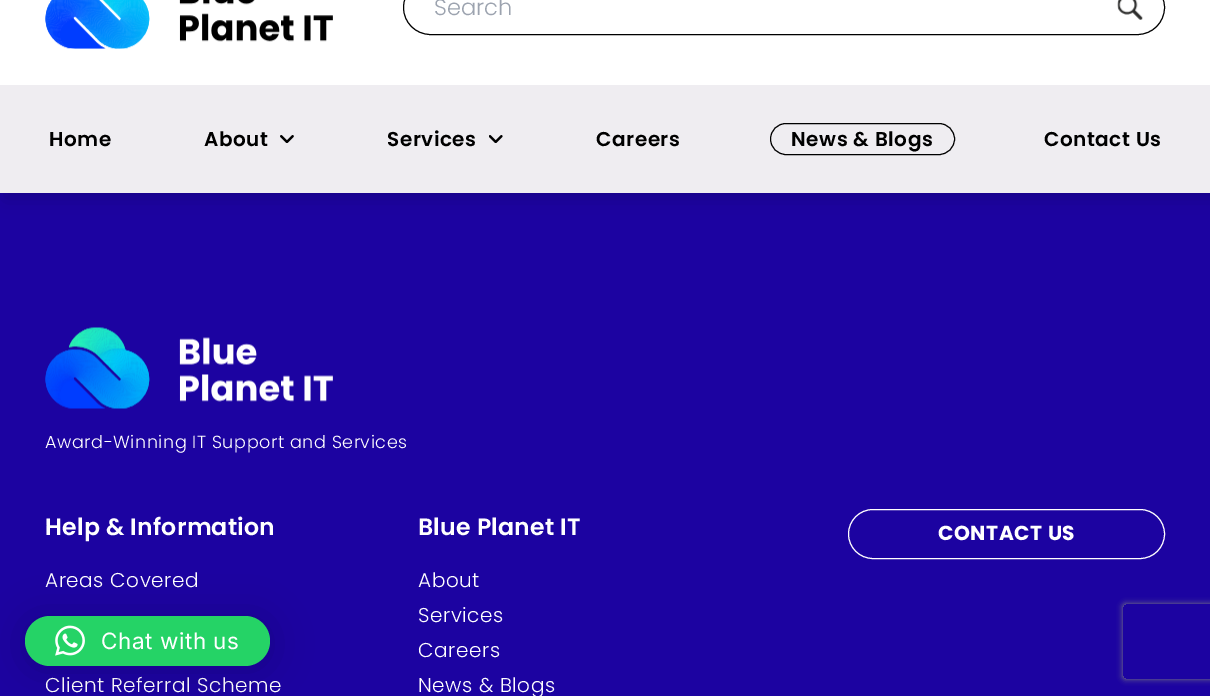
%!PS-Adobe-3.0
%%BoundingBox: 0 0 1210 696
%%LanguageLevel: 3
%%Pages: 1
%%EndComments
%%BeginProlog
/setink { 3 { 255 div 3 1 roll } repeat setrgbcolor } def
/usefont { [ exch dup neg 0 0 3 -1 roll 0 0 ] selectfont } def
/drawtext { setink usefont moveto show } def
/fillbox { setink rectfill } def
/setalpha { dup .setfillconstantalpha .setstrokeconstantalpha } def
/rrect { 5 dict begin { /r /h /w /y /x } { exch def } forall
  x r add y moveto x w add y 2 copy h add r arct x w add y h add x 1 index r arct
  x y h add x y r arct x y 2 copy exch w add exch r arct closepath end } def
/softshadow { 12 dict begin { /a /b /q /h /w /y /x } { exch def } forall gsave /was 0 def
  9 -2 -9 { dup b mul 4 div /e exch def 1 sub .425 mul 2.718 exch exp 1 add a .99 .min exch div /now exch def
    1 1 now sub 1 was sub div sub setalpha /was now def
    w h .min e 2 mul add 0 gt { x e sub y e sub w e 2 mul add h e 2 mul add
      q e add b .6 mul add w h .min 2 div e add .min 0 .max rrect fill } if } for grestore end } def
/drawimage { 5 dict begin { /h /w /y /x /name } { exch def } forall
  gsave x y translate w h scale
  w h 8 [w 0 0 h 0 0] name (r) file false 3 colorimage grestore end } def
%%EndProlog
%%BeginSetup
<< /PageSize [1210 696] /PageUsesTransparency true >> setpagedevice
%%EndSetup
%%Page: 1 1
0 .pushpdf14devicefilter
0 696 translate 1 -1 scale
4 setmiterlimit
0 0 1210 696 28 3 161 fillbox
0 0 0 setink
5 90 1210 108 0 9.5 0.15 softshadow
0 0 1210 85 255 255 255 fillbox
(assets/img1.rgb) 45 0 288 49 drawimage
0 0 0 setink
403.5 -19.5 761 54 27 rrect stroke
(Search) 434 15 /Poppins-Light 22.5 156 163 175 drawtext
(assets/img2.rgb) 1117 0 26 20 drawimage
0 85 1210 108 239 237 241 fillbox
/Poppins-SemiBold 20 usefont
0 0 0 setink
49 146 moveto 0.55 0 (Home) ashow
204 146 moveto 0.55 0 (About) ashow
(assets/img3.rgb) 280 135 14 8 drawimage
387 146 moveto 0.55 0 (Services) ashow
(assets/img4.rgb) 489 135 14 8 drawimage
596 146 moveto 0.55 0 (Careers) ashow
770.5 123.5 184 31 15.5 rrect stroke
791 146 moveto 0.55 0 (News & Blogs) ashow
1044 146 moveto 0.55 0 (Contact Us) ashow
(assets/img5.rgb) 45 327 288 82 drawimage
/Poppins-Light 17.55 usefont
255 255 255 setink
45 448 moveto 0.55 0 (Award-Winning IT Support and Services) ashow
/Poppins-SemiBold 23.6 usefont
45 535 moveto 0.25 0 (Help & Information) ashow
/Poppins-Light 20 usefont
45 587 moveto 0.55 0 (Areas Covered) ashow
45 692 moveto 0.55 0 (Client Referral Scheme) ashow
/Poppins-SemiBold 23.6 usefont
418 535 moveto 0.25 0 (Blue Planet IT) ashow
/Poppins-Light 20 usefont
418 587 moveto 0.55 0 (About) ashow
418 622 moveto 0.55 0 (Services) ashow
418 657 moveto 0.55 0 (Careers) ashow
418 692 moveto 0.55 0 (News & Blogs) ashow
848.5 509.5 316 49 24.5 rrect stroke
/Poppins-Bold 20.25 usefont
938 540 moveto 0.55 0 (CONTACT US) ashow
gsave
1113 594 moveto 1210 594 lineto 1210 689 lineto 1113 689 lineto closepath 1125.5 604 moveto 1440.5 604 lineto 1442 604 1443 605 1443 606.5 curveto 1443 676.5 lineto 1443 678 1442 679 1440.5 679 curveto 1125.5 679 lineto 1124 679 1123 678 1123 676.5 curveto 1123 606.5 lineto 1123 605 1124 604 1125.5 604 curveto closepath eoclip newpath
128 128 128 setink
1123 604 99 75 2.5 3 1 softshadow
grestore
0 0 0 setink
25 619 245 50 25 20 0.16 softshadow
37 211 102 setink
25 616 245 50 25 rrect fill
(assets/img6.rgb) 55 625 30 31 drawimage
/Inter-Regular 22.5 usefont
255 255 255 setink
101 649 moveto 0.55 0 (Chat with us) ashow
.poppdf14devicefilter showpage
%%EOF
